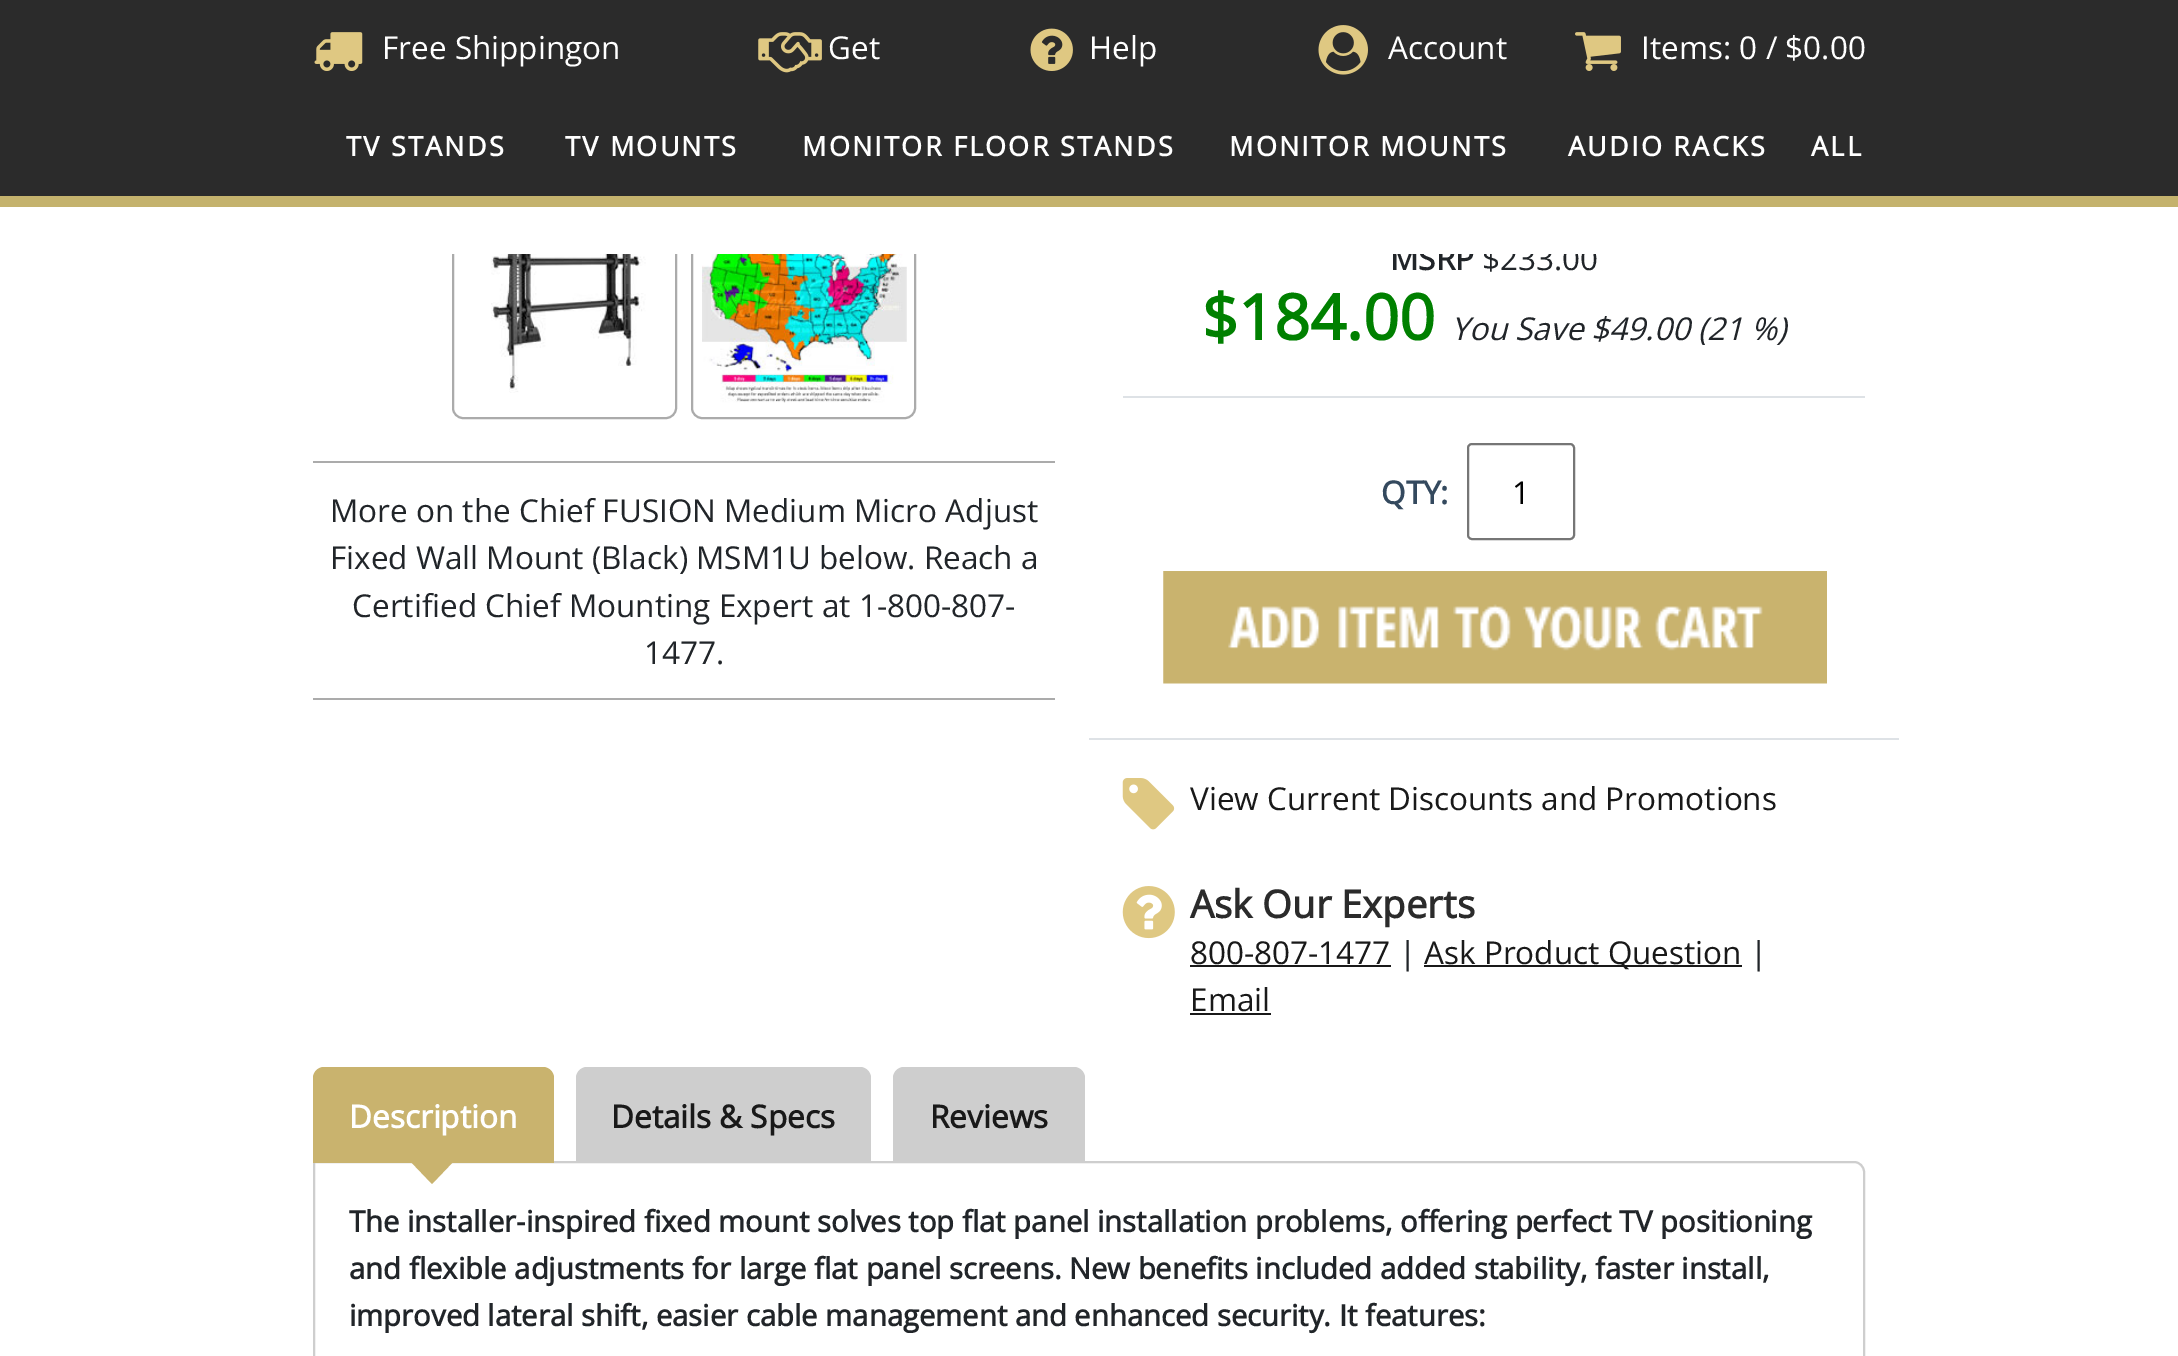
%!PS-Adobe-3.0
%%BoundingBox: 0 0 2178 1356
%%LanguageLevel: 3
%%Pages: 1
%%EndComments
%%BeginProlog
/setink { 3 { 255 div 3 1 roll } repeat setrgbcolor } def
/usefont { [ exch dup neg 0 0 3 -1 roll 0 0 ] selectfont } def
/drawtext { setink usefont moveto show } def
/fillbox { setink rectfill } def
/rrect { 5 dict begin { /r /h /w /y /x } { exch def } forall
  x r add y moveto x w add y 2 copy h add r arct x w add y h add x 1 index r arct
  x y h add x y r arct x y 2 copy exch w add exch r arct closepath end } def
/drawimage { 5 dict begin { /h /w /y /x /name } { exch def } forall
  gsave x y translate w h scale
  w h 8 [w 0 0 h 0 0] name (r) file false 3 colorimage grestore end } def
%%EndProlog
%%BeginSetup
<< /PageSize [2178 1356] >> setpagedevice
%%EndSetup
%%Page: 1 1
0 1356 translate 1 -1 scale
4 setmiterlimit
0 0 2178 1356 255 255 255 fillbox
171 171 171 setink
2 setlinewidth
453 195 223 223 10 rrect stroke
692 195 223 223 10 rrect stroke
(MSRP) 1390 270 /OpenSans-Bold 31.5 33 37 41 drawtext
($233.00) 1482 270 /OpenSans-Regular 31.5 33 37 41 drawtext
452 207 1145 47 255 255 255 fillbox
0 0 2178 196 43 43 43 fillbox
(assets/img1.rgb) 314 32 49 39 drawimage
(Free Shippingon) 382 59 /OpenSans-Regular 31.5 255 255 255 drawtext
(assets/img2.rgb) 758 32 64 41 drawimage
(Get) 828 59 /OpenSans-Regular 31.5 255 255 255 drawtext
(assets/img3.rgb) 1030 28 43 43 drawimage
(Help) 1089 59 /OpenSans-Regular 31.5 255 255 255 drawtext
(assets/img4.rgb) 1318 25 50 50 drawimage
(Account) 1388 59 /OpenSans-Regular 31.5 255 255 255 drawtext
(assets/img5.rgb) 1575 32 46 39 drawimage
(Items: 0 / $0.00) 1641 59 /OpenSans-Regular 31.5 255 255 255 drawtext
0 196 2178 11 196 178 109 fillbox
/OpenSans-Bold 27 usefont
255 255 255 setink
346 156 moveto 2.25 0 (TV STANDS) ashow
565 156 moveto 2.25 0 (TV MOUNTS) ashow
802 156 moveto 2.25 0 (MONITOR FLOOR STANDS) ashow
1229 156 moveto 2.25 0 (MONITOR MOUNTS) ashow
1568 156 moveto 2.25 0 (AUDIO RACKS) ashow
1811 156 moveto 2.25 0 (ALL) ashow
(assets/img6.rgb) 491 254 155 139 drawimage
(assets/img7.rgb) 702 254 205 149 drawimage
313 461 742 2 171 171 171 fillbox
313 698 742 2 171 171 171 fillbox
(More on the Chief FUSION Medium Micro Adjust) 330 522 /OpenSans-Regular 31.5 33 37 41 drawtext
(Fixed Wall Mount \(Black\) MSM1U below. Reach a) 330 569 /OpenSans-Regular 31.5 33 37 41 drawtext
(Certified Chief Mounting Expert at 1-800-807-) 352 617 /OpenSans-Regular 31.5 33 37 41 drawtext
(1477.) 644 664 /OpenSans-Regular 31.5 33 37 41 drawtext
1123 396 742 2 222 226 230 fillbox
($184.00) 1202 340 /OpenSans-Bold 63 0 128 0 drawtext
(You Save $49.00 \(21 %\)) 1451 340 /OpenSans-Italic 31.5 33 37 41 drawtext
(QTY:) 1381 504 /OpenSans-Bold 31.5 52 73 94 drawtext
118 118 118 setink
1468 444 106 95 4 rrect stroke
(1) 1512 504 /OpenSans-Regular 31.5 0 0 0 drawtext
(assets/img8.rgb) 1163 571 664 113 drawimage
1089 738 810 2 222 226 230 fillbox
(assets/img9.rgb) 1122 778 53 52 drawimage
(View Current Discounts and Promotions) 1190 810 /OpenSans-Regular 31.5 25 25 25 drawtext
(assets/img10.rgb) 1122 886 53 53 drawimage
(Ask Our Experts) 1190 918 /OpenSans-Bold 38.25 43 43 43 drawtext
(800-807-1477) 1190 964 /OpenSans-Regular 31.5 25 25 25 drawtext
1190 965 201 2 25 25 25 fillbox
(|) 1399 964 /OpenSans-Regular 31.5 33 37 41 drawtext
1424 965 318 2 25 25 25 fillbox
(Ask Product Question) 1424 964 /OpenSans-Regular 31.5 25 25 25 drawtext
(|) 1750 964 /OpenSans-Regular 31.5 33 37 41 drawtext
(Email) 1190 1011 /OpenSans-Regular 31.5 25 25 25 drawtext
1190 1013 81 2 25 25 25 fillbox
206 206 206 setink
314 1162 moveto 1854 1162 lineto 1859.5 1162 1864 1166.5 1864 1172 curveto 1864 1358 lineto 1864 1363.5 1859.5 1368 1854 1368 curveto 324 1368 lineto 318.5 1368 314 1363.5 314 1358 curveto closepath stroke
201 179 110 setink
324 1067 moveto 543 1067 lineto 549 1067 554 1072 554 1078 curveto 554 1163 lineto 313 1163 lineto 313 1078 lineto 313 1072 318 1067 324 1067 curveto closepath fill
(Description) 349 1128 /OpenSans-Bold 31.5 255 255 255 drawtext
201 179 110 setink
410 1161 moveto 454 1161 lineto 432 1184 lineto closepath fill
206 206 206 setink
587 1067 moveto 860 1067 lineto 866 1067 871 1072 871 1078 curveto 871 1163 lineto 576 1163 lineto 576 1078 lineto 576 1072 581 1067 587 1067 curveto closepath fill
(Details & Specs) 611 1128 /OpenSans-Bold 31.5 25 25 25 drawtext
206 206 206 setink
904 1067 moveto 1074 1067 lineto 1080 1067 1085 1072 1085 1078 curveto 1085 1163 lineto 893 1163 lineto 893 1078 lineto 893 1072 898 1067 904 1067 curveto closepath fill
(Reviews) 930 1128 /OpenSans-Bold 31.5 25 25 25 drawtext
(The installer-inspired fixed mount solves top flat panel installation problems, offering perfect TV positioning) 349 1232 /OpenSans-Bold 29.25 33 37 41 drawtext
(and flexible adjustments for large flat panel screens. New benefits included added stability, faster install,) 349 1279 /OpenSans-Bold 29.25 33 37 41 drawtext
(improved lateral shift, easier cable management and enhanced security. It features:) 349 1326 /OpenSans-Bold 29.25 33 37 41 drawtext
showpage
%%EOF
